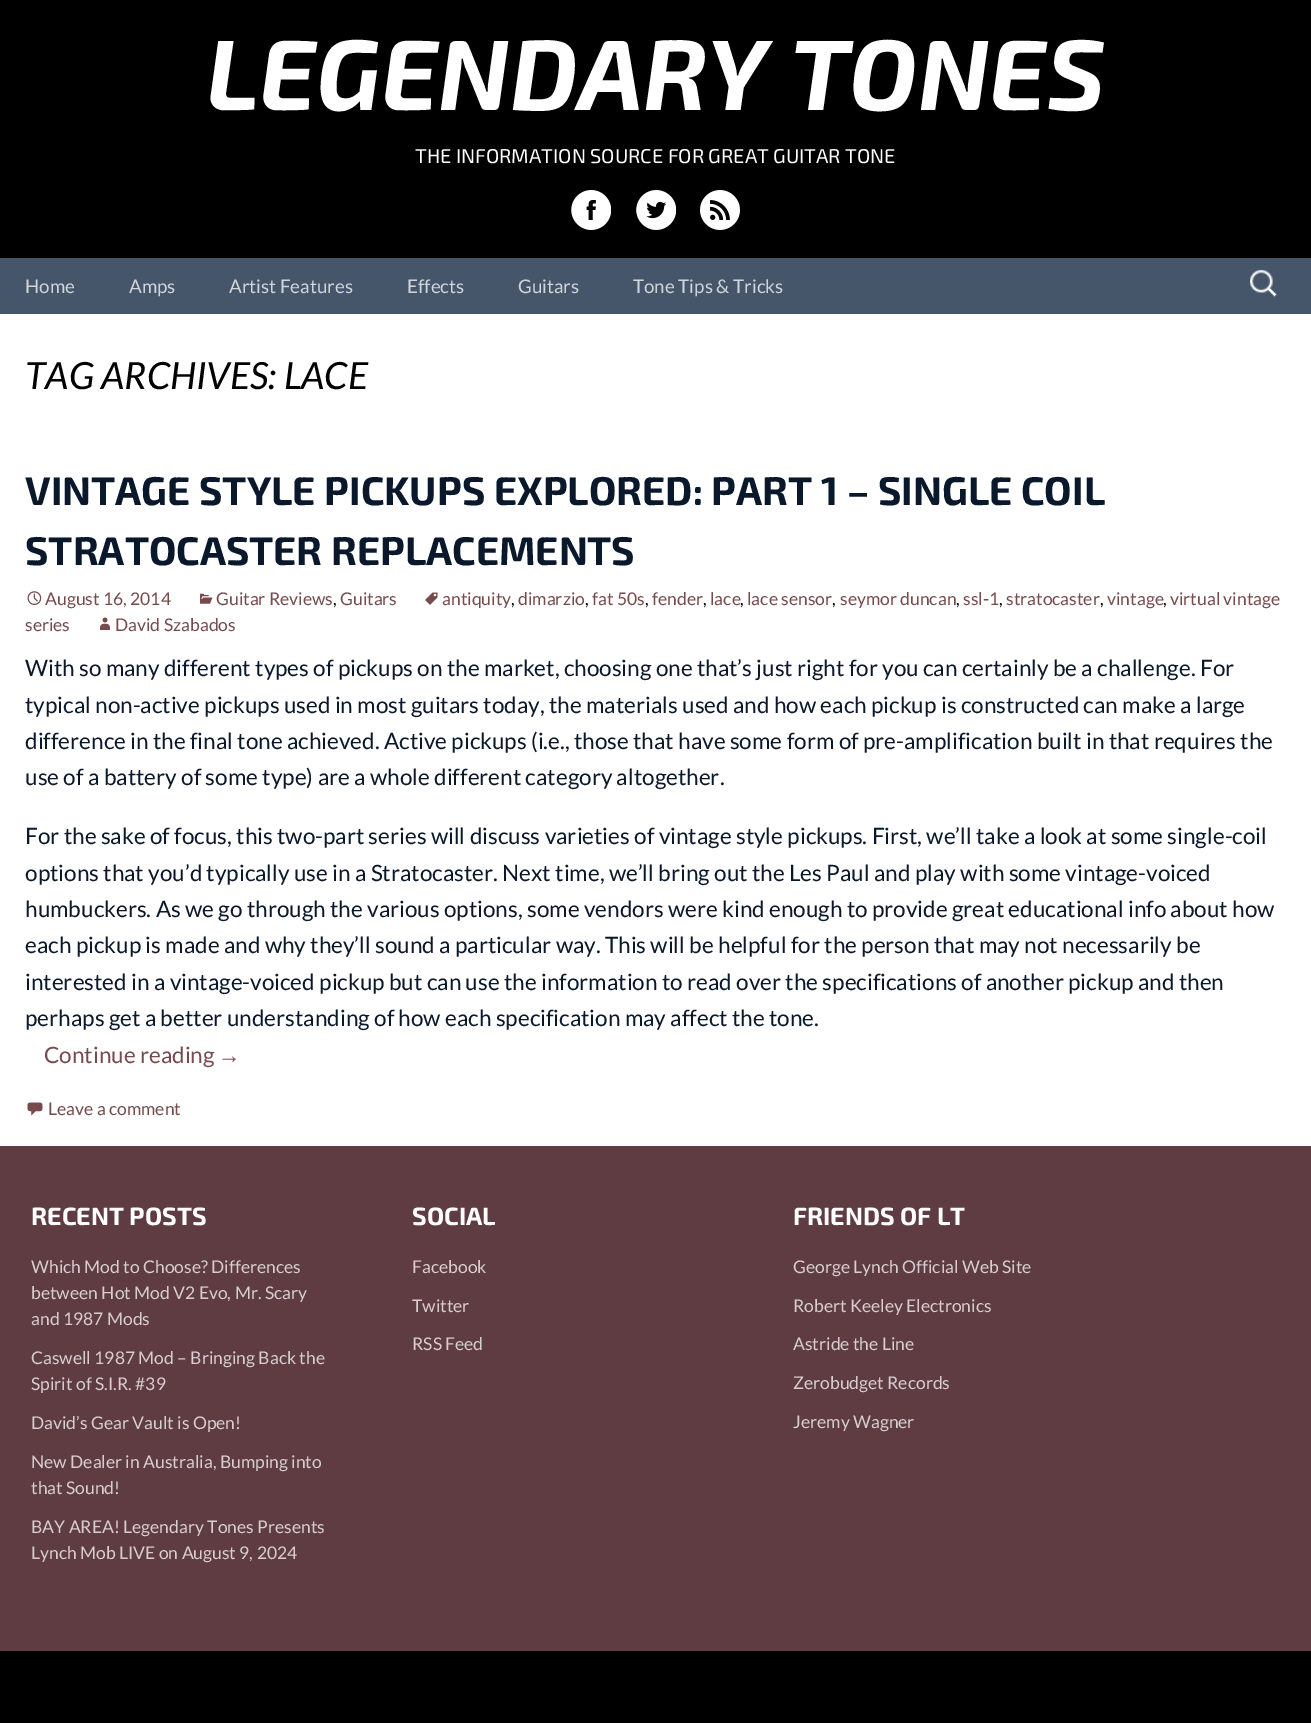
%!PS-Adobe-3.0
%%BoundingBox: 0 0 1311 1723
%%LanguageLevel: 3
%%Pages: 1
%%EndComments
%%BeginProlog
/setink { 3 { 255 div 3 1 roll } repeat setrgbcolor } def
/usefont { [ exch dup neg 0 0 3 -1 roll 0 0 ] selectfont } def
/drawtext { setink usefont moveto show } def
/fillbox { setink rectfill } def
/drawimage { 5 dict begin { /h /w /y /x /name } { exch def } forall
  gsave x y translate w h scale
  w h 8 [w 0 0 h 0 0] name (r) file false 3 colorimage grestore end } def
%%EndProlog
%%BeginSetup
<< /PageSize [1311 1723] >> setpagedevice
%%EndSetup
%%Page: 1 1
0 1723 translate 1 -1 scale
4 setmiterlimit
0 0 1311 1723 0 0 0 fillbox
(LEGENDARY TONES) 206 110 /Exo2-BoldItalic 100 255 255 255 drawtext
(THE INFORMATION SOURCE FOR GREAT GUITAR TONE) 415 163 /Exo2-Regular 20 255 255 255 drawtext
(assets/img1.rgb) 571 190 40 40 drawimage
(assets/img2.rgb) 636 190 40 40 drawimage
(assets/img3.rgb) 700 190 40 40 drawimage
0 258 1311 56 69 85 106 fillbox
(Home) 25 293 /Lato-Regular 18.75 209 213 218 drawtext
(Amps) 129 293 /Lato-Regular 18.75 209 213 218 drawtext
(Artist Features) 229 293 /Lato-Regular 18.75 209 213 218 drawtext
(Effects) 407 293 /Lato-Regular 18.75 209 213 218 drawtext
(Guitars) 518 293 /Lato-Regular 18.75 209 213 218 drawtext
(Tone Tips & Tricks) 633 293 /Lato-Regular 18.75 209 213 218 drawtext
(assets/img4.rgb) 1250 269 27 28 drawimage
0 314 1311 832 255 255 255 fillbox
(TAG ARCHIVES: LACE) 25 389 /Lato-Italic 37.5 0 0 0 drawtext
(VINTAGE STYLE PICKUPS EXPLORED: PART 1 – SINGLE COIL) 25 505 /Exo2-Bold 40 10 24 43 drawtext
(STRATOCASTER REPLACEMENTS) 25 565 /Exo2-Bold 40 10 24 43 drawtext
(assets/img5.rgb) 425 592 13 13 drawimage
(antiquity) 442 605 /Lato-Regular 17.5 119 75 77 drawtext
(,) 511 605 /Lato-Regular 17.5 0 0 0 drawtext
(dimarzio) 518 605 /Lato-Regular 17.5 119 75 77 drawtext
(,) 585 605 /Lato-Regular 17.5 0 0 0 drawtext
(fat 50s) 592 605 /Lato-Regular 17.5 119 75 77 drawtext
(,) 645 605 /Lato-Regular 17.5 0 0 0 drawtext
(fender) 652 605 /Lato-Regular 17.5 119 75 77 drawtext
(,) 703 605 /Lato-Regular 17.5 0 0 0 drawtext
(lace) 710 605 /Lato-Regular 17.5 119 75 77 drawtext
(,) 740 605 /Lato-Regular 17.5 0 0 0 drawtext
(lace sensor) 747 605 /Lato-Regular 17.5 119 75 77 drawtext
(,) 832 605 /Lato-Regular 17.5 0 0 0 drawtext
(seymor duncan) 840 605 /Lato-Regular 17.5 119 75 77 drawtext
(,) 956 605 /Lato-Regular 17.5 0 0 0 drawtext
(ssl-1) 963 605 /Lato-Regular 17.5 119 75 77 drawtext
(,) 999 605 /Lato-Regular 17.5 0 0 0 drawtext
(stratocaster) 1006 605 /Lato-Regular 17.5 119 75 77 drawtext
(,) 1100 605 /Lato-Regular 17.5 0 0 0 drawtext
(vintage) 1107 605 /Lato-Regular 17.5 119 75 77 drawtext
(,) 1163 605 /Lato-Regular 17.5 0 0 0 drawtext
(virtual vintage) 1170 605 /Lato-Regular 17.5 119 75 77 drawtext
(series) 25 631 /Lato-Regular 17.5 119 75 77 drawtext
(assets/img6.rgb) 27 591 15 14 drawimage
(August 16, 2014) 45 605 /Lato-Regular 17.5 119 75 77 drawtext
(assets/img7.rgb) 200 593 13 11 drawimage
(Guitar Reviews) 216 605 /Lato-Regular 17.5 119 75 77 drawtext
(,) 333 605 /Lato-Regular 17.5 0 0 0 drawtext
(Guitars) 340 605 /Lato-Regular 17.5 119 75 77 drawtext
(assets/img8.rgb) 100 617 10 13 drawimage
(David Szabados) 115 631 /Lato-Regular 17.5 119 75 77 drawtext
(With so many different types of pickups on the market, choosing one that’s just right for you can certainly be a challenge. For) 25 676 /Lato-Regular 22.5 10 24 43 drawtext
(typical non-active pickups used in most guitars today, the materials used and how each pickup is constructed can make a large) 25 713 /Lato-Regular 22.5 10 24 43 drawtext
(difference in the final tone achieved. Active pickups \(i.e., those that have some form of pre-amplification built in that requires the) 25 749 /Lato-Regular 22.5 10 24 43 drawtext
(use of a battery of some type\) are a whole different category altogether.) 25 785 /Lato-Regular 22.5 10 24 43 drawtext
(For the sake of focus, this two-part series will discuss varieties of vintage style pickups. First, we’ll take a look at some single-coil) 25 844 /Lato-Regular 22.5 10 24 43 drawtext
(options that you’d typically use in a Stratocaster. Next time, we’ll bring out the Les Paul and play with some vintage-voiced) 25 881 /Lato-Regular 22.5 10 24 43 drawtext
(humbuckers. As we go through the various options, some vendors were kind enough to provide great educational info about how) 25 917 /Lato-Regular 22.5 10 24 43 drawtext
(each pickup is made and why they’ll sound a particular way. This will be helpful for the person that may not necessarily be) 25 953 /Lato-Regular 22.5 10 24 43 drawtext
(interested in a vintage-voiced pickup but can use the information to read over the specifications of another pickup and then) 25 990 /Lato-Regular 22.5 10 24 43 drawtext
(perhaps get a better understanding of how each specification may affect the tone.) 25 1026 /Lato-Regular 22.5 10 24 43 drawtext
(Continue reading) 44 1063 /Lato-Regular 22.5 119 75 77 drawtext
(→) 218 1063 /LiberationSans-Regular 22.5 119 75 77 drawtext
(assets/img9.rgb) 27 1102 16 14 drawimage
(Leave a comment) 48 1115 /Lato-Regular 17.5 119 75 77 drawtext
0 1146 1311 505 95 59 66 fillbox
(RECENT POSTS) 31 1225 /Exo2-Bold 25 255 255 255 drawtext
(Which Mod to Choose? Differences) 31 1273 /Lato-Regular 17.5 215 206 208 drawtext
(between Hot Mod V2 Evo, Mr. Scary) 31 1299 /Lato-Regular 17.5 215 206 208 drawtext
(and 1987 Mods) 31 1325 /Lato-Regular 17.5 215 206 208 drawtext
(Caswell 1987 Mod – Bringing Back the) 31 1364 /Lato-Regular 17.5 215 206 208 drawtext
(Spirit of S.I.R. #39) 31 1390 /Lato-Regular 17.5 215 206 208 drawtext
(David’s Gear Vault is Open!) 31 1429 /Lato-Regular 17.5 215 206 208 drawtext
(New Dealer in Australia, Bumping into) 31 1468 /Lato-Regular 17.5 215 206 208 drawtext
(that Sound!) 31 1494 /Lato-Regular 17.5 215 206 208 drawtext
(BAY AREA! Legendary Tones Presents) 31 1533 /Lato-Regular 17.5 215 206 208 drawtext
(Lynch Mob LIVE on August 9, 2024) 31 1559 /Lato-Regular 17.5 215 206 208 drawtext
(SOCIAL) 412 1225 /Exo2-Bold 25 255 255 255 drawtext
(Facebook) 412 1273 /Lato-Regular 17.5 215 206 208 drawtext
(Twitter) 412 1312 /Lato-Regular 17.5 215 206 208 drawtext
(RSS Feed) 412 1350 /Lato-Regular 17.5 215 206 208 drawtext
(FRIENDS OF LT) 793 1225 /Exo2-Bold 25 255 255 255 drawtext
(George Lynch Official Web Site) 793 1273 /Lato-Regular 17.5 215 206 208 drawtext
(Robert Keeley Electronics) 793 1312 /Lato-Regular 17.5 215 206 208 drawtext
(Astride the Line) 793 1350 /Lato-Regular 17.5 215 206 208 drawtext
(Zerobudget Records) 793 1389 /Lato-Regular 17.5 215 206 208 drawtext
(Jeremy Wagner) 793 1428 /Lato-Regular 17.5 215 206 208 drawtext
showpage
%%EOF
